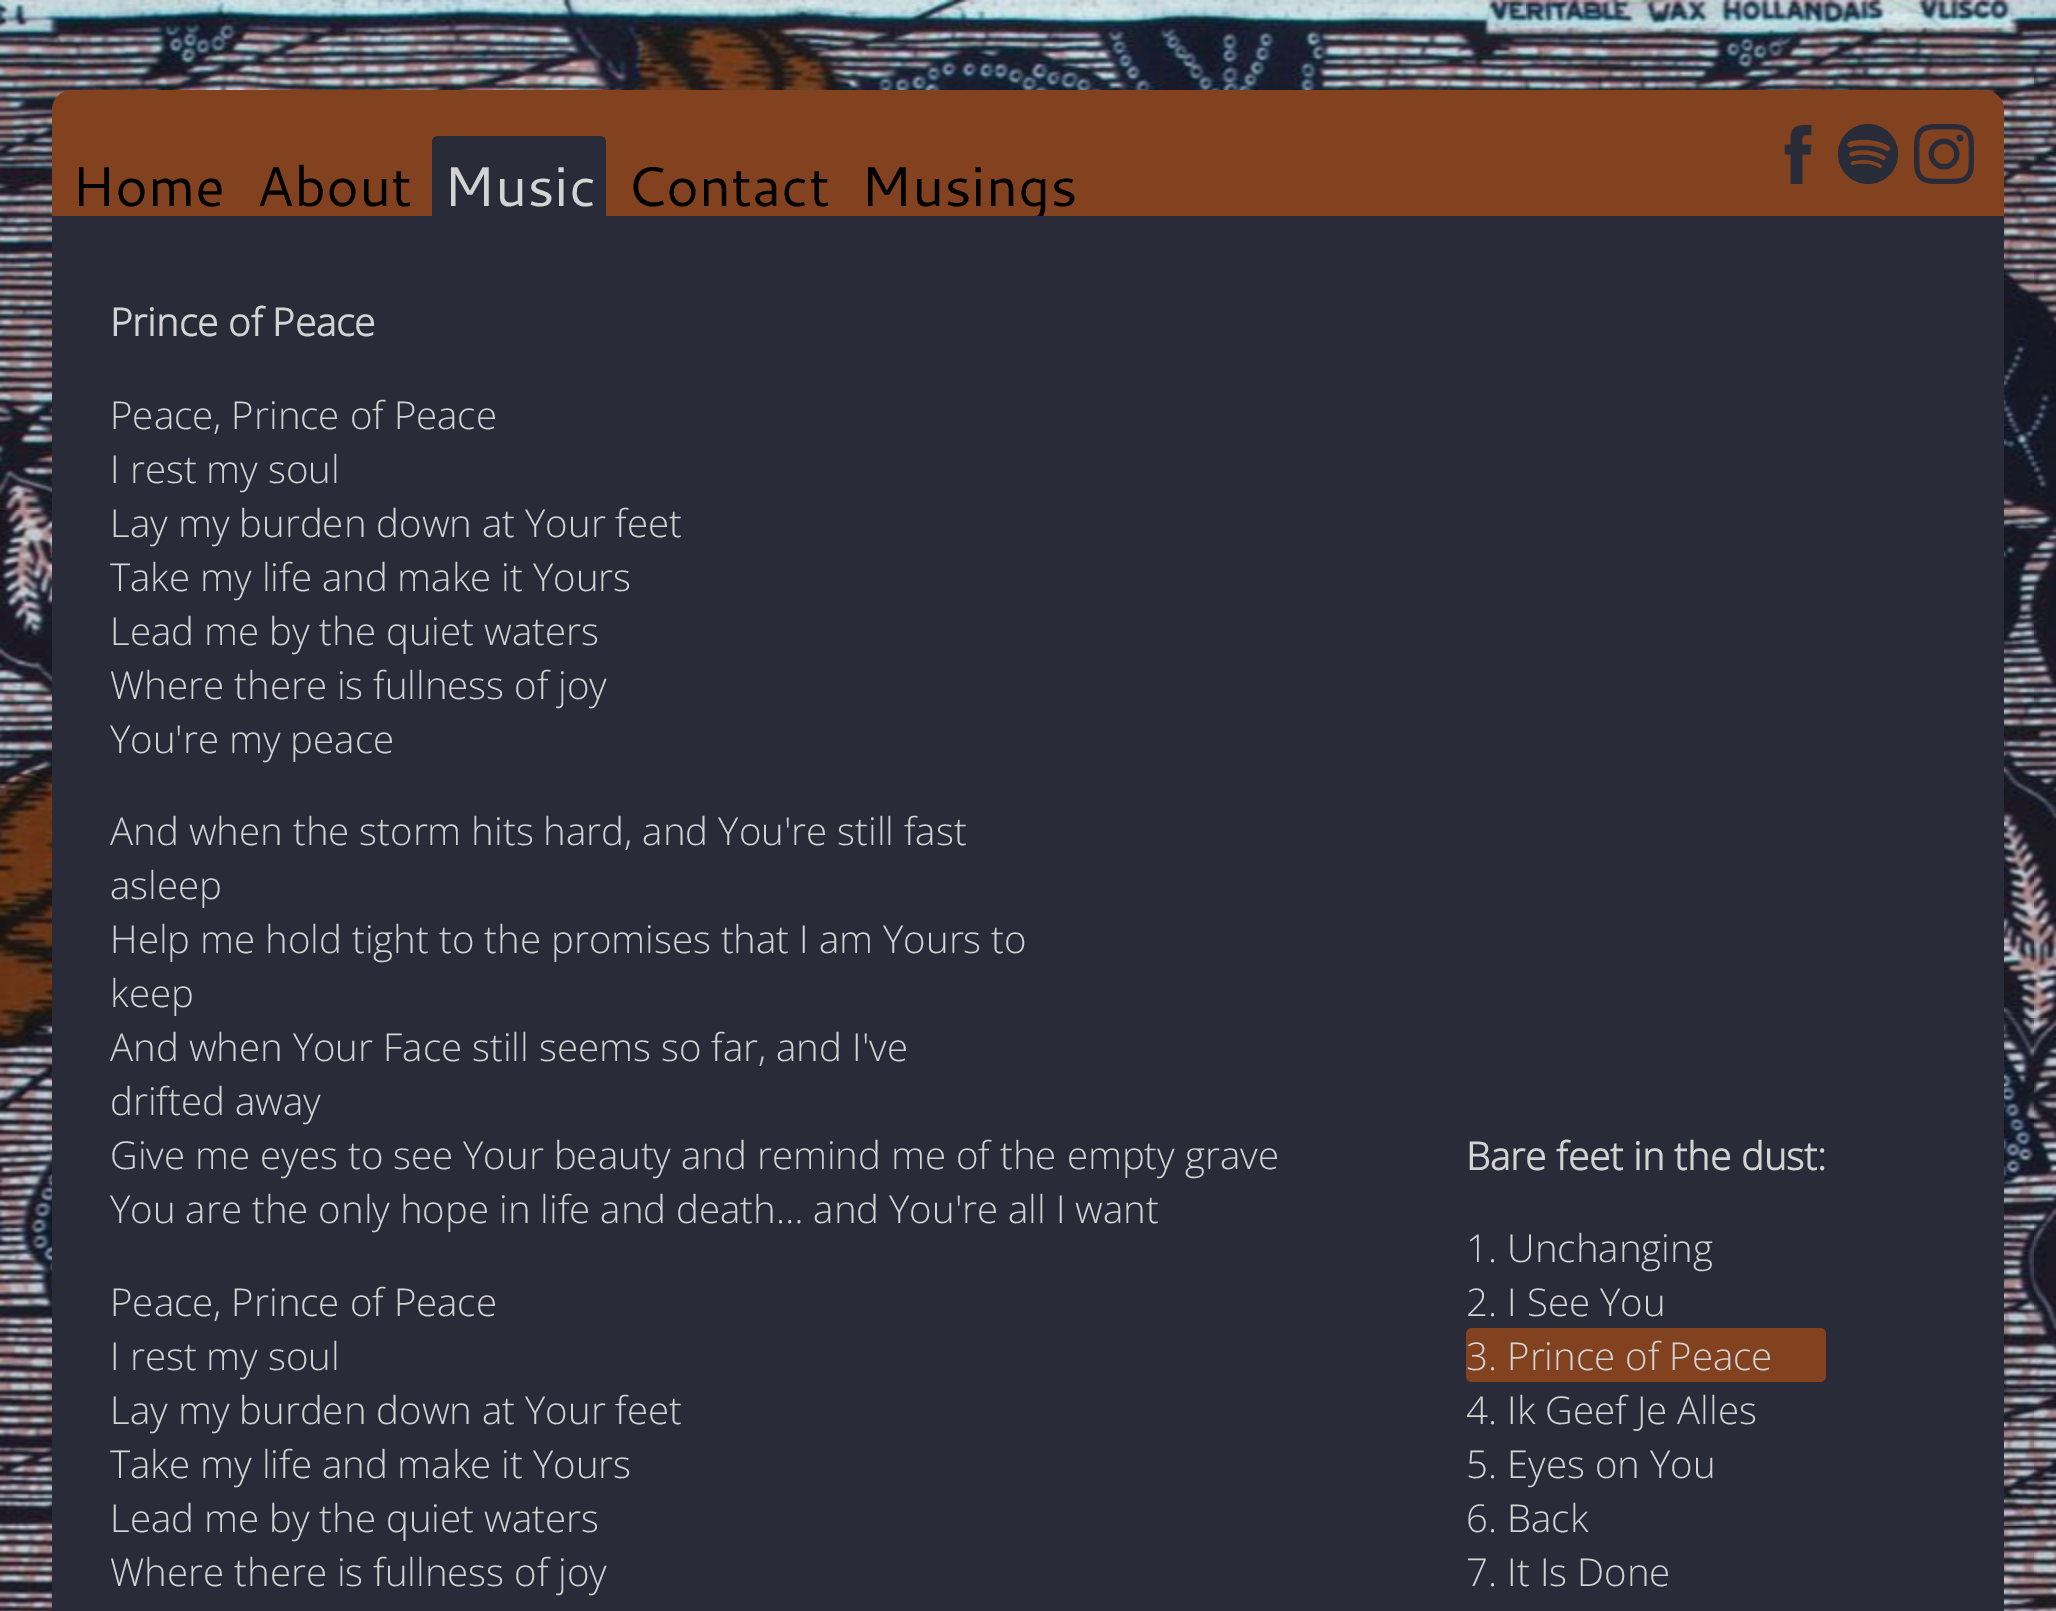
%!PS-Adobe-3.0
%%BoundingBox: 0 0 2056 1611
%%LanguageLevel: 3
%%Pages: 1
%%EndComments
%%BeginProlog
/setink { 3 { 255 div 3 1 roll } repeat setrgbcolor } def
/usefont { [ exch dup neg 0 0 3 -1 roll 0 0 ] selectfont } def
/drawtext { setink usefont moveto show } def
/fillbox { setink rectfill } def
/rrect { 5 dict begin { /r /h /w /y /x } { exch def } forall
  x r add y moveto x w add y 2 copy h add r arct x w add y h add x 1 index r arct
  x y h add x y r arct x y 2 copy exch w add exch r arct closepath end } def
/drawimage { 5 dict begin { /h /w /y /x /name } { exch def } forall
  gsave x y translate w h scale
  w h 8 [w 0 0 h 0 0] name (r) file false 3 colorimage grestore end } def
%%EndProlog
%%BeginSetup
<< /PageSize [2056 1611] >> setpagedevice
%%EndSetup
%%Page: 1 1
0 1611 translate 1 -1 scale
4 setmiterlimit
0 0 2056 1611 255 255 255 fillbox
(assets/img1.rgb) 0 0 2056 1611 drawimage
130 66 32 setink
72 90 moveto 1984 90 lineto 1995 90 2004 99 2004 110 curveto 2004 216 lineto 52 216 lineto 52 110 lineto 52 99 61 90 72 90 curveto closepath fill
(Home) 71 206 /Cantarell-Regular 56 0 0 0 drawtext
(About) 256 206 /Cantarell-Regular 56 0 0 0 drawtext
41 43 57 setink
438 136 moveto 600 136 lineto 603.5 136 606 138.5 606 142 curveto 606 216 lineto 432 216 lineto 432 142 lineto 432 138.5 434.5 136 438 136 curveto closepath fill
(Music) 443 206 /Cantarell-Regular 56 211 211 211 drawtext
(Contact) 626 206 /Cantarell-Regular 56 0 0 0 drawtext
gsave
72 90 moveto 1984 90 lineto 1995 90 2004 99 2004 110 curveto 2004 216 lineto 52 216 lineto 52 110 lineto 52 99 61 90 72 90 curveto closepath clip newpath
(Musings) 860 206 /Cantarell-Regular 56 0 0 0 drawtext
grestore
(assets/img2.rgb) 1784 125 28 59 drawimage
(assets/img3.rgb) 1838 124 60 60 drawimage
(assets/img4.rgb) 1914 124 60 60 drawimage
52 216 1952 1395 41 43 57 fillbox
(Prince of Peace) 110 336 /OpenSans-Bold 38.4 211 211 211 drawtext
(Peace, Prince of Peace) 110 429 /OpenSans-Light 38.4 211 211 211 drawtext
(I rest my soul) 110 483 /OpenSans-Light 38.4 211 211 211 drawtext
(Lay my burden down at Your feet) 110 537 /OpenSans-Light 38.4 211 211 211 drawtext
(Take my life and make it Yours) 110 591 /OpenSans-Light 38.4 211 211 211 drawtext
(Lead me by the quiet waters) 110 645 /OpenSans-Light 38.4 211 211 211 drawtext
(Where there is fullness of joy) 110 699 /OpenSans-Light 38.4 211 211 211 drawtext
(You're my peace) 110 753 /OpenSans-Light 38.4 211 211 211 drawtext
(And when the storm hits hard, and You're still fast) 110 845 /OpenSans-Light 38.4 211 211 211 drawtext
(asleep) 110 899 /OpenSans-Light 38.4 211 211 211 drawtext
(Help me hold tight to the promises that I am Yours to) 110 953 /OpenSans-Light 38.4 211 211 211 drawtext
(keep) 110 1007 /OpenSans-Light 38.4 211 211 211 drawtext
(And when Your Face still seems so far, and I've) 110 1061 /OpenSans-Light 38.4 211 211 211 drawtext
(drifted away) 110 1115 /OpenSans-Light 38.4 211 211 211 drawtext
(Give me eyes to see Your beauty and remind me of the empty grave) 110 1169 /OpenSans-Light 38.4 211 211 211 drawtext
(You are the only hope in life and death… and You're all I want) 110 1223 /OpenSans-Light 38.4 211 211 211 drawtext
(Peace, Prince of Peace) 110 1316 /OpenSans-Light 38.4 211 211 211 drawtext
(I rest my soul) 110 1370 /OpenSans-Light 38.4 211 211 211 drawtext
(Lay my burden down at Your feet) 110 1424 /OpenSans-Light 38.4 211 211 211 drawtext
(Take my life and make it Yours) 110 1478 /OpenSans-Light 38.4 211 211 211 drawtext
(Lead me by the quiet waters) 110 1532 /OpenSans-Light 38.4 211 211 211 drawtext
(Where there is fullness of joy) 110 1586 /OpenSans-Light 38.4 211 211 211 drawtext
(Bare feet in the dust:) 1466 1170 /OpenSans-Bold 38.4 211 211 211 drawtext
(1. Unchanging) 1466 1262 /OpenSans-Light 38.4 211 211 211 drawtext
(2. I See You) 1466 1316 /OpenSans-Light 38.4 211 211 211 drawtext
130 66 32 setink
1466 1328 360 54 6 rrect fill
(3. Prince of Peace) 1466 1370 /OpenSans-Light 38.4 211 211 211 drawtext
(4. Ik Geef Je Alles) 1466 1424 /OpenSans-Light 38.4 211 211 211 drawtext
(5. Eyes on You) 1466 1478 /OpenSans-Light 38.4 211 211 211 drawtext
(6. Back) 1466 1532 /OpenSans-Light 38.4 211 211 211 drawtext
(7. It Is Done) 1466 1586 /OpenSans-Light 38.4 211 211 211 drawtext
showpage
%%EOF
